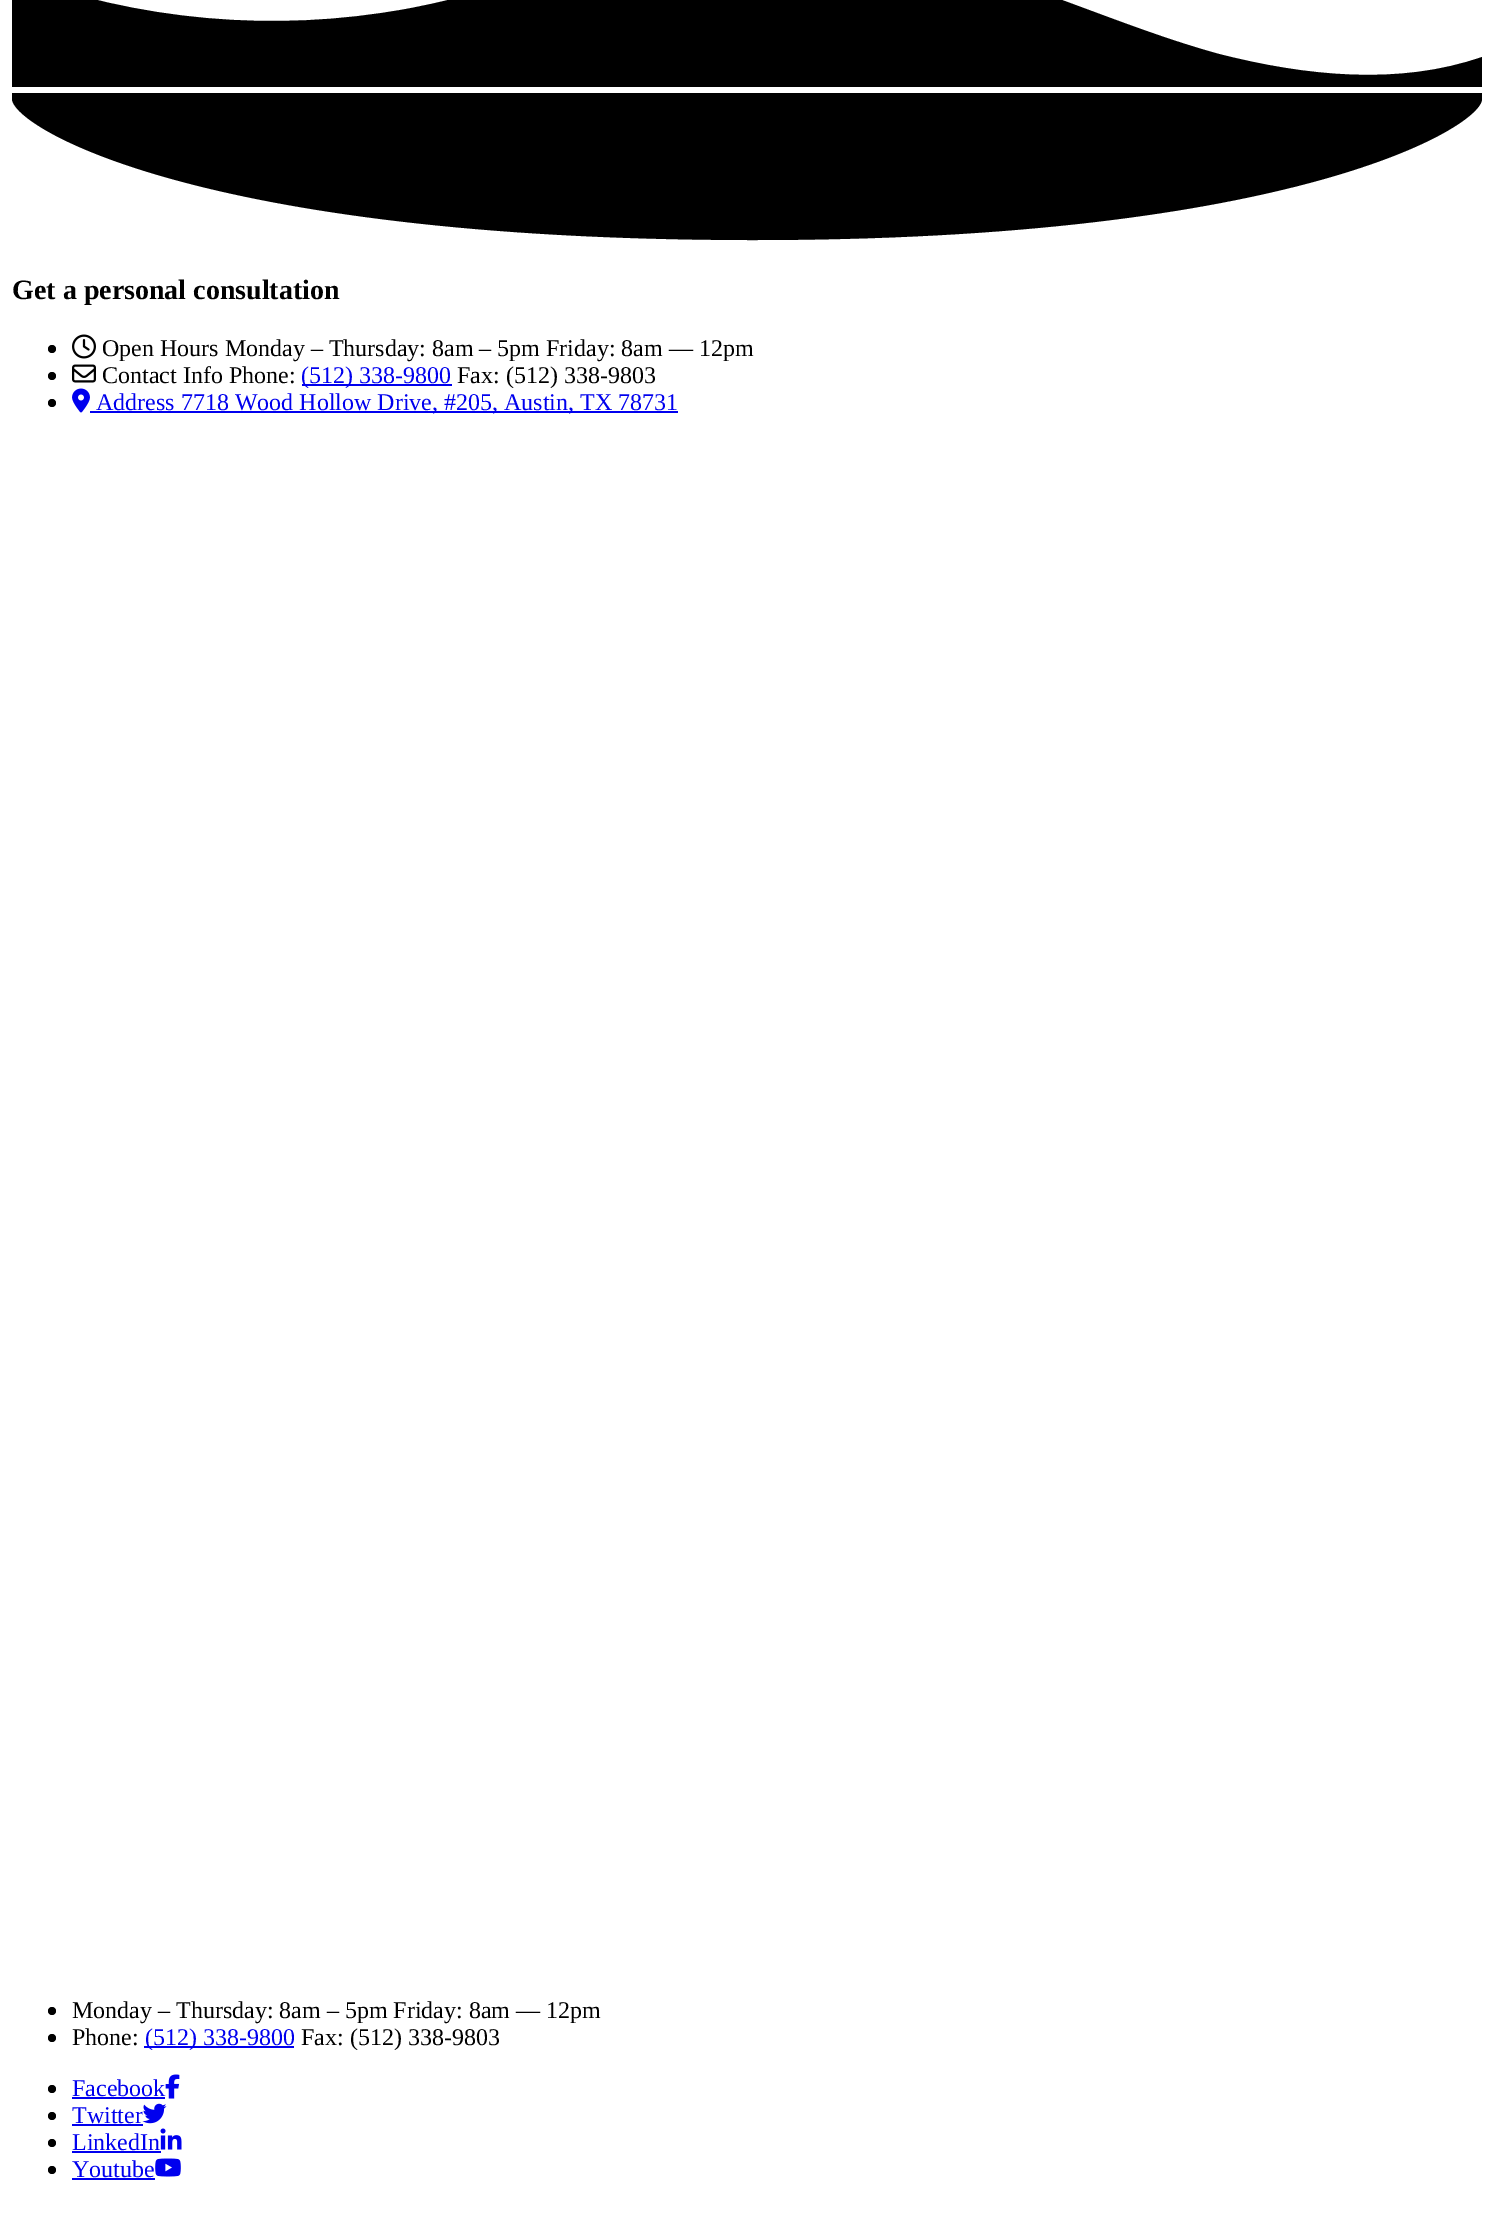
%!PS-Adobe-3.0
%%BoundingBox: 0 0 1494 2218
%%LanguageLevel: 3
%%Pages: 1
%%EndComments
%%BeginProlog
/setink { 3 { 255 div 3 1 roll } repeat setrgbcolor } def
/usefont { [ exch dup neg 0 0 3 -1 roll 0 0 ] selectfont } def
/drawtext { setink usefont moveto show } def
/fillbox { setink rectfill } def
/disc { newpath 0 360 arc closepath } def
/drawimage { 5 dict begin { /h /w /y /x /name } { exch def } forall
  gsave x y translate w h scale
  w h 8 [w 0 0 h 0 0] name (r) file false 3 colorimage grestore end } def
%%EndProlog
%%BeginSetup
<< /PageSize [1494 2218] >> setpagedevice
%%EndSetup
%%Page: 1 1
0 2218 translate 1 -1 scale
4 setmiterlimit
0 0 1494 2218 255 255 255 fillbox
0 0 0 setink
1219 54 moveto 1123 28 1021 -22 923 -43 curveto 822 -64 717 -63 616 -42 curveto 546 -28 477 -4 406 9 curveto 274 33 138 21 12 -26 curveto 12 87 lineto 1482 87 lineto 1482 57 lineto 1399 86 1305 76 1219 54 curveto closepath fill
1482 99 moveto 1482 93 lineto 12 93 lineto 12 99 lineto 13 127 198 239 747 240 curveto 1296 241 1482 126 1482 99 curveto closepath fill
(Get a personal consultation) 12 299 /LiberationSerif-Bold 28 0 0 0 drawtext
52 349 4 disc fill
(assets/img1.rgb) 72 334 24 25 drawimage
(Open Hours Monday – Thursday: 8am – 5pm Friday: 8am — 12pm) 102 356 /LiberationSerif-Regular 24 0 0 0 drawtext
52 376 4 disc fill
(assets/img2.rgb) 72 364 24 19 drawimage
(Contact Info Phone:) 102 383 /LiberationSerif-Regular 24 0 0 0 drawtext
302 384 150 2 0 0 238 fillbox
(\(512\) 338-9800) 301 383 /LiberationSerif-Regular 24 0 0 238 drawtext
(Fax: \(512\) 338-9803) 457 383 /LiberationSerif-Regular 24 0 0 0 drawtext
52 403 4 disc fill
(assets/img3.rgb) 72 388 18 25 drawimage
90 411 588 2 0 0 238 fillbox
(Address 7718 Wood Hollow Drive, #205, Austin, TX 78731) 96 410 /LiberationSerif-Regular 24 0 0 238 drawtext
0 0 0 setink
52 2011 4 disc fill
(Monday – Thursday: 8am – 5pm Friday: 8am — 12pm) 72 2018 /LiberationSerif-Regular 24 0 0 0 drawtext
52 2038 4 disc fill
(Phone:) 72 2045 /LiberationSerif-Regular 24 0 0 0 drawtext
144 2046 150 2 0 0 238 fillbox
(\(512\) 338-9800) 145 2045 /LiberationSerif-Regular 24 0 0 238 drawtext
(Fax: \(512\) 338-9803) 301 2045 /LiberationSerif-Regular 24 0 0 0 drawtext
52 2089 4 disc fill
(Facebook) 72 2096 /LiberationSerif-Regular 24 0 0 238 drawtext
72 2097 93 2 0 0 238 fillbox
(assets/img4.rgb) 165 2074 15 25 drawimage
0 0 0 setink
52 2116 4 disc fill
(Twitter) 72 2123 /LiberationSerif-Regular 24 0 0 238 drawtext
72 2124 71 2 0 0 238 fillbox
(assets/img5.rgb) 142 2103 25 21 drawimage
0 0 0 setink
52 2143 4 disc fill
(LinkedIn) 72 2150 /LiberationSerif-Regular 24 0 0 238 drawtext
72 2151 89 2 0 0 238 fillbox
(assets/img6.rgb) 160 2128 22 22 drawimage
0 0 0 setink
52 2170 4 disc fill
(Youtube) 72 2177 /LiberationSerif-Regular 24 0 0 238 drawtext
72 2178 83 2 0 0 238 fillbox
(assets/img7.rgb) 155 2158 26 19 drawimage
showpage
%%EOF
